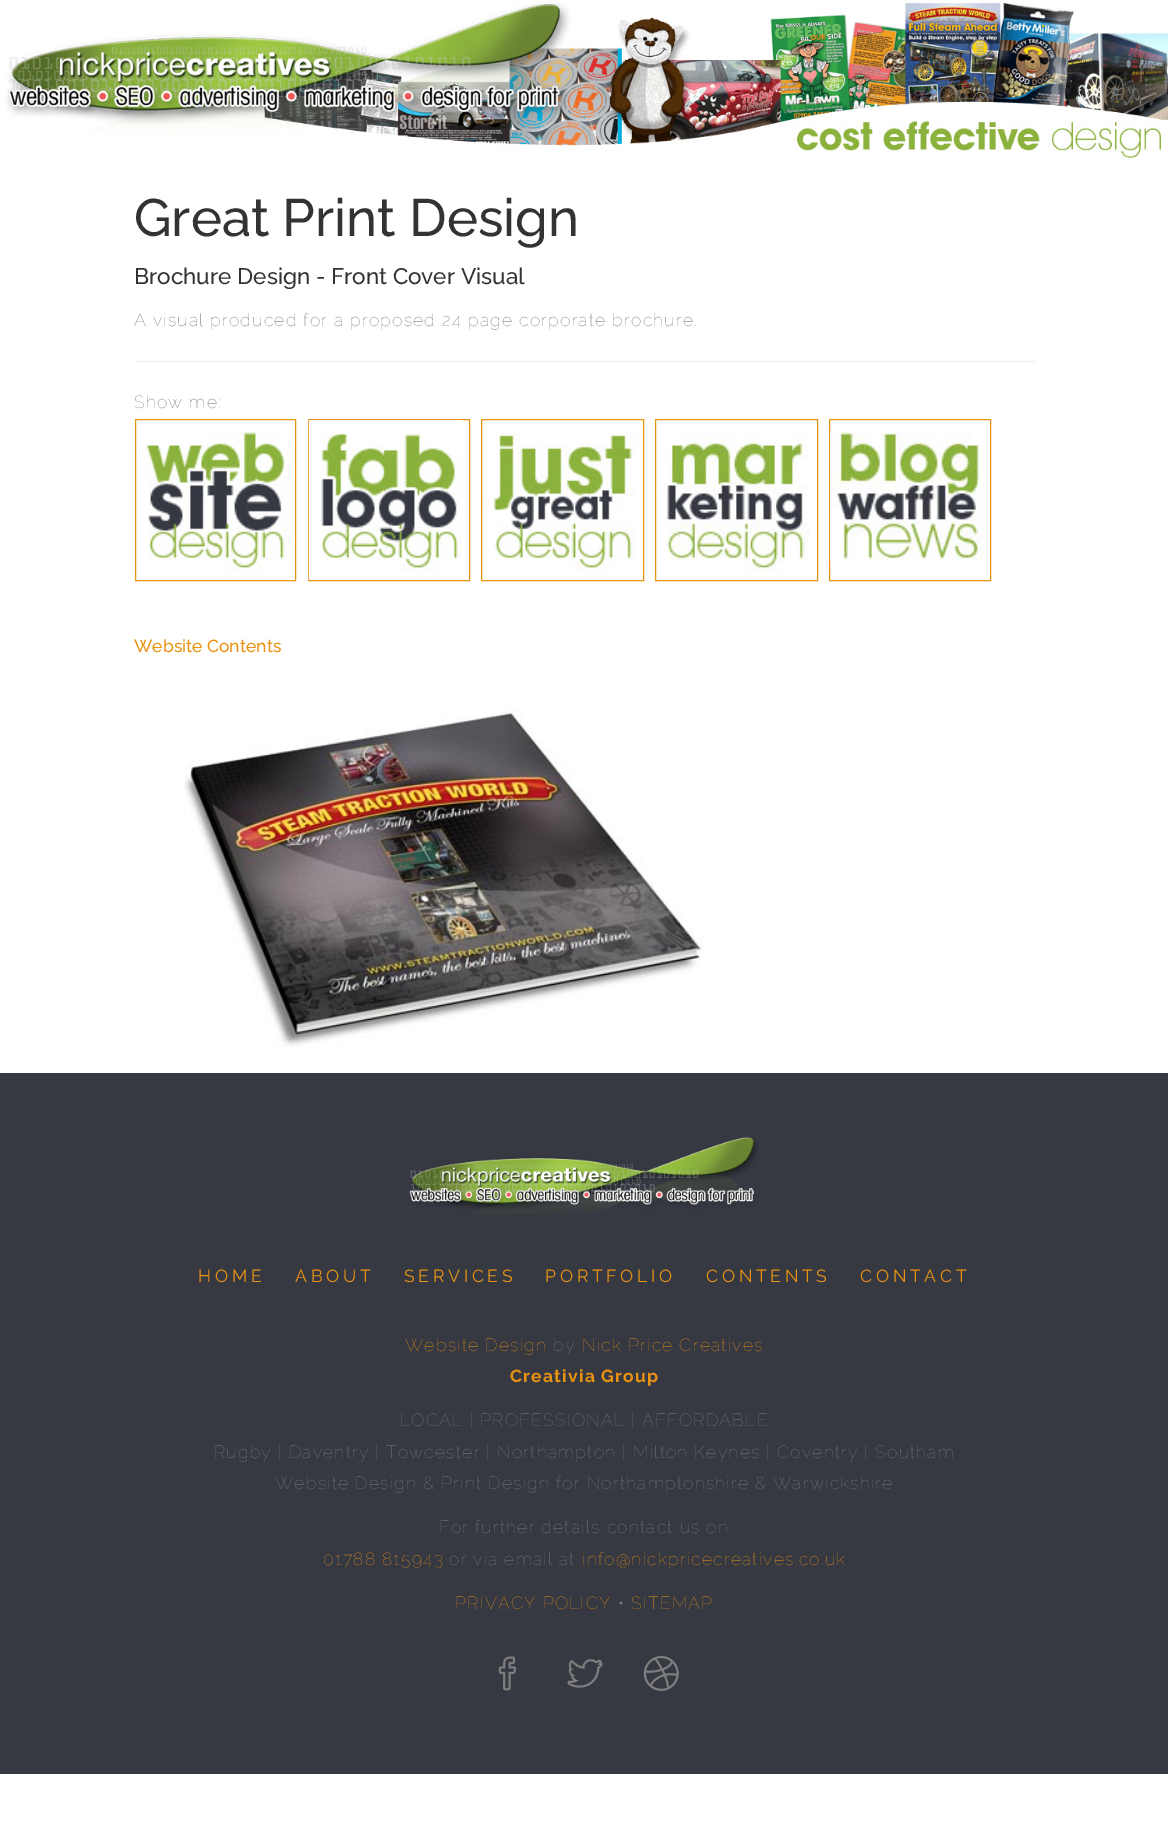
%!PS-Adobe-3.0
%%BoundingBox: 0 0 1168 1843
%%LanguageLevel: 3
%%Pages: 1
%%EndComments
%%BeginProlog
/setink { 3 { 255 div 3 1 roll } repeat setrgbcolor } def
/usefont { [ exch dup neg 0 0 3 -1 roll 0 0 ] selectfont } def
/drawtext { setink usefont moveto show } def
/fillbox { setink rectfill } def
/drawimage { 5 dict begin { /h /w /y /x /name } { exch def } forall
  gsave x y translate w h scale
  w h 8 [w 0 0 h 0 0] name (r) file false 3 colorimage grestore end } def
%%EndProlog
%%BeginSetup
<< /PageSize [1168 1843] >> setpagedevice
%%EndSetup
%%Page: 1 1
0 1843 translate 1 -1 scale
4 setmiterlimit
0 0 1168 1843 255 255 255 fillbox
(assets/img1.rgb) 5 0 1163 162 drawimage
(Great Print Design) 134 236 /Raleway-Medium 52.5 51 51 51 drawtext
(Brochure Design - Front Cover Visual) 134 284 /Raleway-Medium 22.5 51 51 51 drawtext
/Raleway-Thin 17.5 usefont
102 102 102 setink
134 326 moveto 1.25 0 (A visual produced for a proposed 24 page corporate brochure.) ashow
135 361 900 1 238 238 238 fillbox
102 102 102 setink
134 408 moveto 1.25 0 (Show me:) ashow
234 147 18 setink
135.5 419.5 160 161 rectstroke
308.5 419.5 161 161 rectstroke
481.5 419.5 162 161 rectstroke
655.5 419.5 162 161 rectstroke
829.5 419.5 161 161 rectstroke
(assets/img2.rgb) 138 432 151 142 drawimage
(assets/img3.rgb) 308 420 154 160 drawimage
(assets/img4.rgb) 484 433 152 141 drawimage
(assets/img5.rgb) 660 433 150 141 drawimage
(assets/img6.rgb) 830 432 154 129 drawimage
(Website Contents) 134 652 /Raleway-Medium 17.5 234 147 18 drawtext
(assets/img7.rgb) 184 709 518 338 drawimage
0 1073 1168 701 54 57 66 fillbox
(assets/img8.rgb) 409 1137 350 77 drawimage
/Raleway-Regular 17.5 usefont
234 147 18 setink
198 1282 moveto 3.75 0 (HOME) ashow
295 1282 moveto 3.75 0 (ABOUT) ashow
404 1282 moveto 3.75 0 (SERVICES) ashow
545 1282 moveto 3.75 0 (PORTFOLIO) ashow
706 1282 moveto 3.75 0 (CONTENTS) ashow
860 1282 moveto 3.75 0 (CONTACT) ashow
/Raleway-Thin 17.5 usefont
405 1351 moveto 1.25 0 (Website Design) ashow
126 126 126 setink
553 1351 moveto 1.25 0 (by) ashow
234 147 18 setink
582 1351 moveto 1.25 0 (Nick Price Creatives) ashow
/Raleway-Bold 17.5 usefont
510 1382 moveto 1.25 0 (Creativia Group) ashow
/Raleway-Thin 17.5 usefont
126 126 126 setink
400 1426 moveto 1.25 0 (LOCAL | PROFESSIONAL | AFFORDABLE) ashow
214 1458 moveto 1.25 0 (Rugby | Daventry | Towcester | Northampton | Milton Keynes | Coventry | Southam) ashow
275 1489 moveto 1.25 0 (Website Design & Print Design for Northamptonshire & Warwickshire) ashow
439 1533 moveto 1.25 0 (For further details contact us on) ashow
234 147 18 setink
323 1565 moveto 1.25 0 (01788 815943) ashow
126 126 126 setink
449 1565 moveto 1.25 0 (or via email at) ashow
234 147 18 setink
582 1565 moveto 1.25 0 (info@nickpricecreatives.co.uk) ashow
455 1609 moveto 1.25 0 (PRIVACY POLICY) ashow
126 126 126 setink
618 1609 moveto 1.25 0 (•) ashow
234 147 18 setink
631 1609 moveto 1.25 0 (SITEMAP) ashow
(assets/img9.rgb) 498 1656 19 35 drawimage
(assets/img10.rgb) 567 1659 36 29 drawimage
(assets/img11.rgb) 643 1655 36 36 drawimage
showpage
%%EOF
